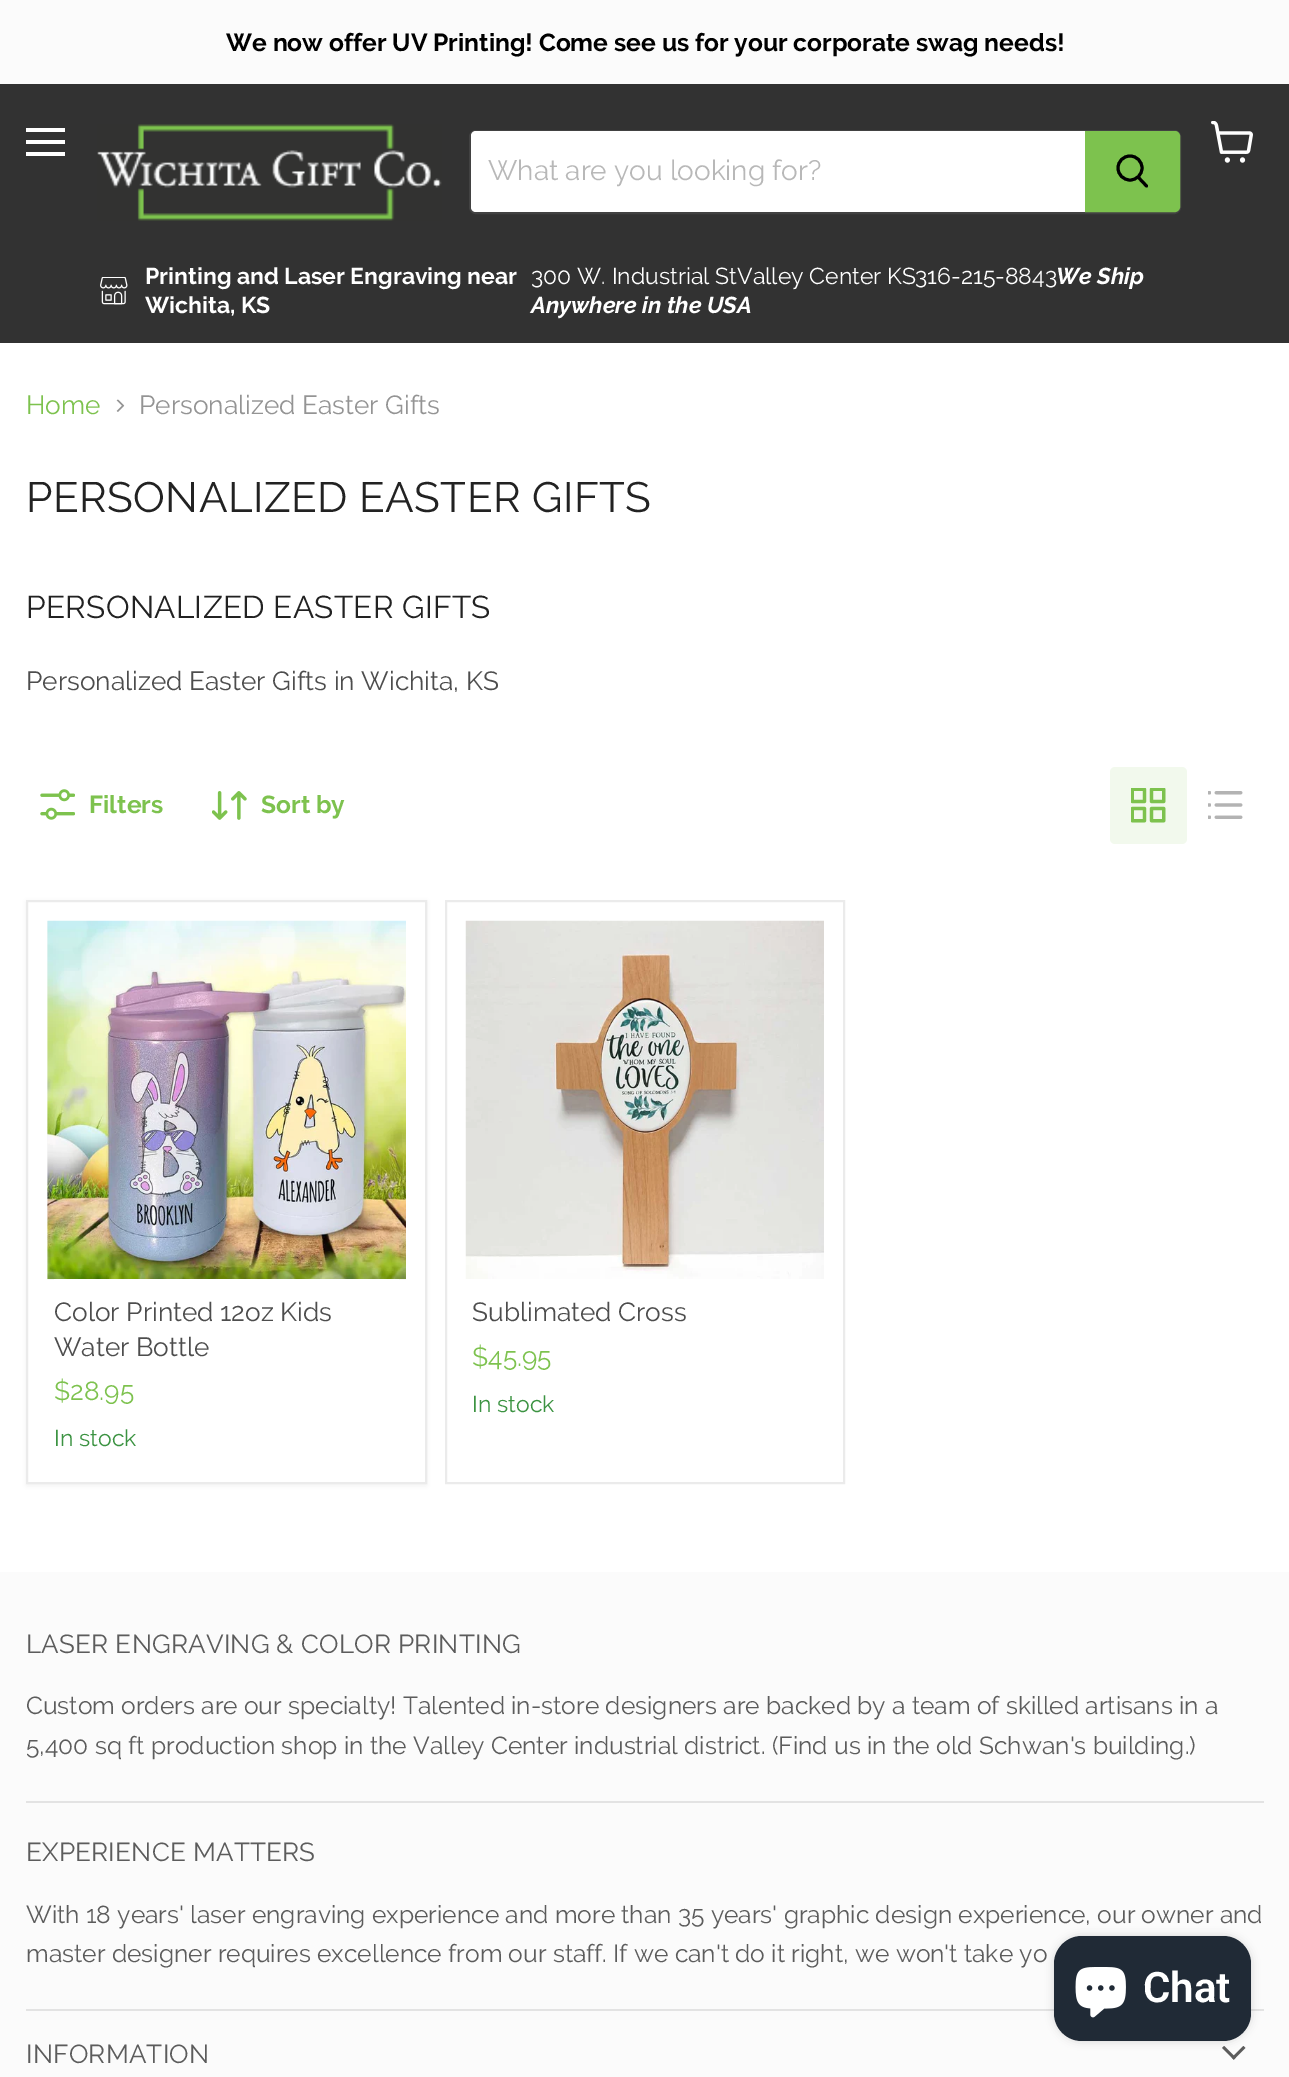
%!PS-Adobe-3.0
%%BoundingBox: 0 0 1289 2077
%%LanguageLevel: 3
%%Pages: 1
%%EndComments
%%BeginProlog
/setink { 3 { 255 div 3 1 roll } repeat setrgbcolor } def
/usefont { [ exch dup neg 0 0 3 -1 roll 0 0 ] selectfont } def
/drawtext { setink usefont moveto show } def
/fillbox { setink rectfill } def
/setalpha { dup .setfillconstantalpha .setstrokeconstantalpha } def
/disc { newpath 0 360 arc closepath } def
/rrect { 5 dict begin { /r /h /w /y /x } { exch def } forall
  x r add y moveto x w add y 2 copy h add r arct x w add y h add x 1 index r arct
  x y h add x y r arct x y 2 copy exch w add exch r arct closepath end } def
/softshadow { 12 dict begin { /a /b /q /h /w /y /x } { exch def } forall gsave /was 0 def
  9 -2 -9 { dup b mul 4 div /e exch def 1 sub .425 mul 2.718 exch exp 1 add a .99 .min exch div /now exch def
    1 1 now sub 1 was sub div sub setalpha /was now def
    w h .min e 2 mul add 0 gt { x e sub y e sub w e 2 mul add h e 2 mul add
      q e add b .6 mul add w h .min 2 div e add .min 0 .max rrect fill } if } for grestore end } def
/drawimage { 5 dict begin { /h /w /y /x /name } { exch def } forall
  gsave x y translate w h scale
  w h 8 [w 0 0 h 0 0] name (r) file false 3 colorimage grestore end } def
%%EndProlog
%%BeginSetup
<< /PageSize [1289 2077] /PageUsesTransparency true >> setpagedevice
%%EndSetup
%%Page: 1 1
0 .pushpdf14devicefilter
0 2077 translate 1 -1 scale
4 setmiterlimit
0 0 1289 2077 255 255 255 fillbox
0 0 1289 84 251 251 251 fillbox
(We now offer UV Printing! Come see us for your corporate swag needs!) 226 51 /Raleway-Bold 24.6 0 0 0 drawtext
0 84 1289 259 50 50 50 fillbox
26 128 39 4 255 255 255 fillbox
26 140 39 4 255 255 255 fillbox
26 152 39 4 255 255 255 fillbox
(assets/img1.rgb) 1211 121 42 42 drawimage
(assets/img2.rgb) 97 124 345 97 drawimage
0.2 setalpha
128 128 128 setink
2 setlinewidth
470 131 710 82 6 rrect stroke
1 setalpha
255 255 255 setink
476 131 moveto 1085 131 lineto 1085 212 lineto 476 212 lineto 473 212 471 210 471 207 curveto 471 136 lineto 471 133 473 131 476 131 curveto closepath fill
(What are you looking for?) 488 180 /Raleway-Regular 28 184 184 184 drawtext
125 194 78 setink
1086 132 moveto 1175 132 lineto 1177 132 1179 134 1179 136 curveto 1179 207 lineto 1179 209 1177 211 1175 211 curveto 1086 211 lineto closepath gsave fill grestore
stroke
0 0 0 setink
3 setlinewidth
1 setlinecap
1146.5 186 moveto 1138.5 177.5 lineto stroke
0 setlinecap
1130 168 12 disc stroke
(assets/img3.rgb) 100 277 28 28 drawimage
(Printing and Laser Engraving near) 145 284 /Raleway-Bold 23 255 255 255 drawtext
(Wichita, KS) 145 313 /Raleway-Bold 23 255 255 255 drawtext
(300 W. Industrial StValley Center KS) 531 284 /Raleway-Regular 23 255 255 255 drawtext
(316-215-8843) 915 284 /Raleway-Regular 23 255 255 255 drawtext
(We Ship) 1056 284 /Raleway-BoldItalic 23 255 255 255 drawtext
(Anywhere in the USA) 531 313 /Raleway-BoldItalic 23 255 255 255 drawtext
(Home) 26 414 /Raleway-Regular 26.25 125 194 78 drawtext
(assets/img4.rgb) 116 399 9 13 drawimage
(Personalized Easter Gifts) 139 414 /Raleway-Regular 26.25 148 148 148 drawtext
/Raleway-Regular 42.4 usefont
34 34 34 setink
26 512 moveto 0.4 0 (PERSONALIZED EASTER GIFTS) ashow
/Raleway-Regular 31.5 usefont
26 618 moveto 0.3 0 (PERSONALIZED EASTER GIFTS) ashow
(Personalized Easter Gifts in Wichita, KS) 26 690 /Raleway-Regular 26.25 77 77 77 drawtext
(assets/img5.rgb) 40 789 35 31 drawimage
(Filters) 89 813 /Raleway-Bold 24.6 125 194 78 drawtext
(assets/img6.rgb) 212 791 35 29 drawimage
(Sort by) 261 813 /Raleway-Bold 24.6 125 194 78 drawtext
242 249 237 setink
1110 767 77 77 5 rrect fill
(assets/img7.rgb) 1131 788 35 35 drawimage
(assets/img8.rgb) 1208 791 35 28 drawimage
128 128 128 setink
26 901 401 585 0 3.5 0.11 softshadow
255 255 255 setink
27 901 moveto 426 901 lineto 426 1483 lineto 27 1483 lineto closepath gsave fill grestore
235 235 235 setink
2 setlinewidth
stroke
47 921 1 358 248 248 248 fillbox
(assets/img9.rgb) 47 920 359 360 drawimage
54 1279 345 1 255 255 255 fillbox
(Color Printed 12oz Kids) 54 1321 /Raleway-Regular 26.25 77 77 77 drawtext
(Water Bottle) 54 1356 /Raleway-Regular 26.25 77 77 77 drawtext
($28.95) 54 1400 /Raleway-Regular 26.25 125 194 78 drawtext
(In stock) 54 1446 /Raleway-Regular 23 60 147 66 drawtext
235 235 235 setink
446 901 398 582 rectstroke
(assets/img10.rgb) 465 920 359 359 drawimage
(Sublimated Cross) 472 1321 /Raleway-Regular 26.25 77 77 77 drawtext
($45.95) 472 1366 /Raleway-Regular 26.25 125 194 78 drawtext
(In stock) 472 1412 /Raleway-Regular 23 60 147 66 drawtext
0 1572 1289 505 251 251 251 fillbox
26 1801 1238 2 227 227 227 fillbox
/Raleway-Regular 26 usefont
92 92 92 setink
26 1653 moveto 0.25 0 (LASER ENGRAVING & COLOR PRINTING) ashow
(Custom orders are our specialty!) 26 1714 /Raleway-Regular 24.6 92 92 92 drawtext
(Talented in-store designers are backed by a team of skilled artisans in a) 403 1714 /Raleway-Regular 24.6 92 92 92 drawtext
(5,400 sq ft production shop in the Valley Center industrial district. \(Find us in the old Schwan's building.\)) 26 1754 /Raleway-Regular 24.6 92 92 92 drawtext
26 2009 1238 2 227 227 227 fillbox
/Raleway-Regular 26 usefont
92 92 92 setink
26 1861 moveto 0.25 0 (EXPERIENCE MATTERS) ashow
(With 18 years' laser engraving experience and more than 35 years' graphic design experience, our owner and) 26 1923 /Raleway-Regular 24.6 92 92 92 drawtext
(master designer requires excellence from our staff. If we can't do it right, we won't take yo) 26 1962 /Raleway-Regular 24.6 92 92 92 drawtext
/Raleway-Regular 26 usefont
26 2063 moveto 0.25 0 (INFORMATION) ashow
(assets/img11.rgb) 1222 2046 24 14 drawimage
0 0 0 setink
1054 1936 197 105 28 4.5 0.15 softshadow
32 42 54 setink
1054 1936 197 105 28 rrect fill
(assets/img12.rgb) 1075 1967 51 51 drawimage
(Chat) 1143 2002 /Roboto-SemiBold 42 255 255 255 drawtext
.poppdf14devicefilter showpage
%%EOF
